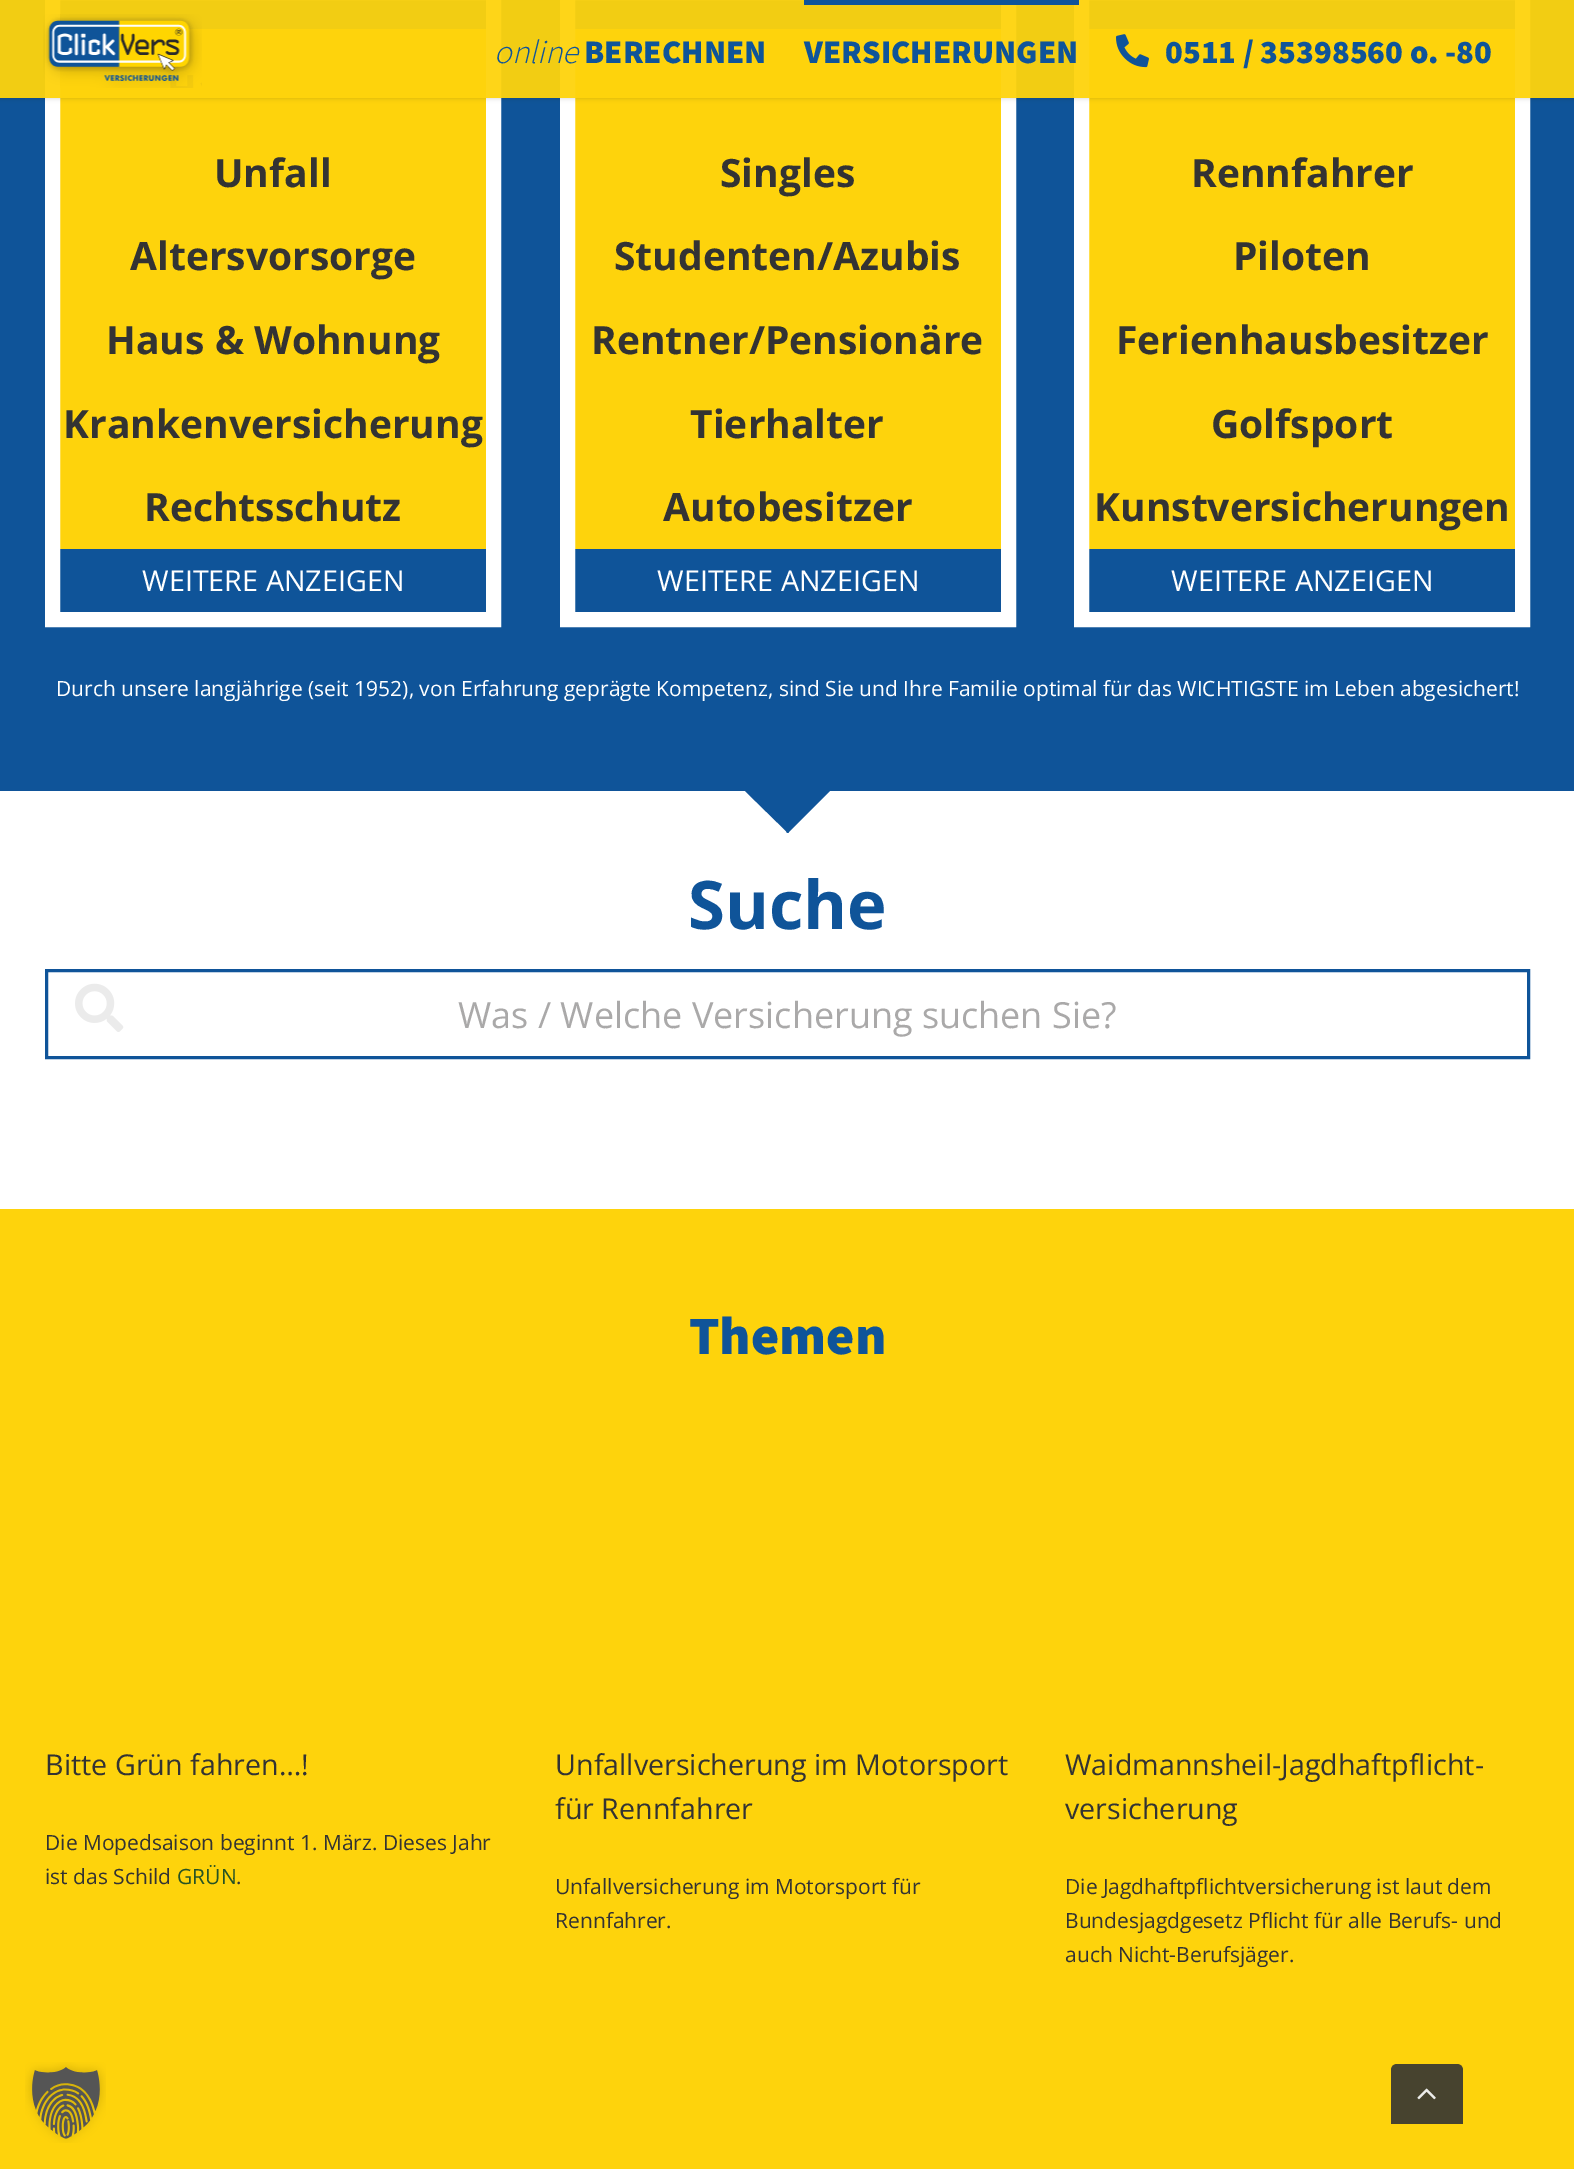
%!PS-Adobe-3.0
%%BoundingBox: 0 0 1574 2169
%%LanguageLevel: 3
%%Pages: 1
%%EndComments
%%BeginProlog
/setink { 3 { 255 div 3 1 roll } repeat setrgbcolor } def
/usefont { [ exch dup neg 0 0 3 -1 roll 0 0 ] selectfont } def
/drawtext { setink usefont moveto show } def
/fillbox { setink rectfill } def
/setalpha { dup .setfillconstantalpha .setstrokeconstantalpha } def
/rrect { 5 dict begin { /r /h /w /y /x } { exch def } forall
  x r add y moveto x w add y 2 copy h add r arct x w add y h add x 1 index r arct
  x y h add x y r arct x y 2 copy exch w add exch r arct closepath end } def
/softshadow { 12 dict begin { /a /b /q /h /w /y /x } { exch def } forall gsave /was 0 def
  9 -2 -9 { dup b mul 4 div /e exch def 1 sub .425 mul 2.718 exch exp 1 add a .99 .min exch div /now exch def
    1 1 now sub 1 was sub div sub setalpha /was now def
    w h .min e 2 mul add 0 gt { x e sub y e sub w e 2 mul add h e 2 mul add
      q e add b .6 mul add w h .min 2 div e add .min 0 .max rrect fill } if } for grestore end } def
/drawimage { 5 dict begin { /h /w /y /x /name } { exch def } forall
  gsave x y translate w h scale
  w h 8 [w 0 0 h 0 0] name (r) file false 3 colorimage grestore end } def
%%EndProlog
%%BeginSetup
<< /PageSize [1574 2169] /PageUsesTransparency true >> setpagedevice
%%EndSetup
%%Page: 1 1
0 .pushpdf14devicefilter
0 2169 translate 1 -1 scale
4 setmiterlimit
0 0 1574 2169 255 255 255 fillbox
0 0 1574 791 15 84 153 fillbox
60 29 426 520 254 211 12 fillbox
255 255 255 setink
15 setlinewidth
52.5 -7.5 441 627 rectstroke
575 29 426 520 254 211 12 fillbox
255 255 255 setink
567.5 -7.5 441 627 rectstroke
1089 29 426 520 254 211 12 fillbox
255 255 255 setink
1081.5 -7.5 441 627 rectstroke
gsave
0 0 moveto 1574 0 lineto 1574 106 lineto 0 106 lineto closepath 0 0 moveto 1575 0 lineto 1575 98 lineto 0 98 lineto closepath eoclip newpath
0 0 0 setink
0 2 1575 97 0 2 0.12 softshadow
grestore
0.95 setalpha
0 0 1574 98 254 211 12 fillbox
1 setalpha
(assets/img1.rgb) 43 14 159 74 drawimage
(online) 494 63 /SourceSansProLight-LightItalic 33 15 84 153 drawtext
(BERECHNEN) 584 63 /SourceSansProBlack-Black 33 15 84 153 drawtext
804 0 275 5 15 84 153 fillbox
(VERSICHERUNGEN) 804 63 /SourceSansProBlack-Black 33 15 84 153 drawtext
(assets/img2.rgb) 1116 34 33 34 drawimage
(0511 / 35398560 o. -80) 1165 63 /SourceSansProBlack-Black 33 15 84 153 drawtext
(Unfall) 214 187 /OpenSans-Bold 39 51 51 51 drawtext
(Altersvorsorge) 130 270 /OpenSans-Bold 39 51 51 51 drawtext
(Haus & Wohnung) 106 354 /OpenSans-Bold 39 51 51 51 drawtext
(Krankenversicherung) 63 438 /OpenSans-Bold 39 51 51 51 drawtext
(Rechtsschutz) 144 521 /OpenSans-Bold 39 51 51 51 drawtext
(WEITERE ANZEIGEN) 142 591 /OpenSans-Regular 28.75 255 255 255 drawtext
(Singles) 720 187 /OpenSans-Bold 39 51 51 51 drawtext
(Studenten/Azubis) 614 270 /OpenSans-Bold 39 51 51 51 drawtext
(Rentner/Pensionäre) 591 354 /OpenSans-Bold 39 51 51 51 drawtext
(Tierhalter) 690 438 /OpenSans-Bold 39 51 51 51 drawtext
(Autobesitzer) 663 521 /OpenSans-Bold 39 51 51 51 drawtext
(WEITERE ANZEIGEN) 657 591 /OpenSans-Regular 28.75 255 255 255 drawtext
(Rennfahrer) 1191 187 /OpenSans-Bold 39 51 51 51 drawtext
(Piloten) 1233 270 /OpenSans-Bold 39 51 51 51 drawtext
(Ferienhausbesitzer) 1116 354 /OpenSans-Bold 39 51 51 51 drawtext
(Golfsport) 1211 438 /OpenSans-Bold 39 51 51 51 drawtext
(Kunstversicherungen) 1094 521 /OpenSans-Bold 39 51 51 51 drawtext
(WEITERE ANZEIGEN) 1171 591 /OpenSans-Regular 28.75 255 255 255 drawtext
(Durch unsere langjährige \(seit 1952\), von Erfahrung geprägte Kompetenz, sind Sie und Ihre Familie optimal für das WICHTIGSTE im Leben abgesichert!) 56 696 /OpenSans-Regular 21 255 255 255 drawtext
15 84 153 setink
744 789 moveto 831 789 lineto 788 832 lineto closepath fill
786 832 moveto 829 790 lineto 830 791 lineto 788 833 lineto closepath fill
745 791 moveto 746 790 lineto 789 832 lineto 788 833 lineto closepath fill
(Suche) 688 929 /OpenSans-Bold 67 15 84 153 drawtext
3 setlinewidth
46.5 970.5 1482 87 rectstroke
(assets/img3.rgb) 75 983 49 49 drawimage
(Was / Welche Versicherung suchen Sie?) 458 1028 /OpenSans-Regular 36 170 169 169 drawtext
0 1209 1574 960 254 211 12 fillbox
(Themen) 689 1354 /SourceSansProBlack-Black 54 15 84 153 drawtext
(Bitte Grün fahren…!) 45 1775 /OpenSans-Regular 28.7 51 51 51 drawtext
(Die Mopedsaison beginnt 1. März. Dieses Jahr) 45 1850 /OpenSans-Regular 21 51 51 51 drawtext
(ist das Schild) 45 1884 /OpenSans-Regular 21 51 51 51 drawtext
(GRÜN) 177 1884 /OpenSans-Regular 21 38 83 36 drawtext
(.) 236 1884 /OpenSans-Regular 21 51 51 51 drawtext
(Unfallversicherung im Motorsport) 555 1775 /OpenSans-Regular 28.7 51 51 51 drawtext
(für Rennfahrer) 555 1819 /OpenSans-Regular 28.7 51 51 51 drawtext
(Unfallversicherung im Motorsport für) 555 1894 /OpenSans-Regular 21 51 51 51 drawtext
(Rennfahrer.) 555 1928 /OpenSans-Regular 21 51 51 51 drawtext
(Waidmannsheil-Jagdhaftpflicht-) 1065 1775 /OpenSans-Regular 28.7 51 51 51 drawtext
(versicherung) 1065 1819 /OpenSans-Regular 28.7 51 51 51 drawtext
(Die Jagdhaftpflichtversicherung ist laut dem) 1065 1894 /OpenSans-Regular 21 51 51 51 drawtext
(Bundesjagdgesetz Pflicht für alle Berufs- und) 1065 1928 /OpenSans-Regular 21 51 51 51 drawtext
(auch Nicht-Berufsjäger.) 1065 1962 /OpenSans-Regular 21 51 51 51 drawtext
(assets/img4.rgb) 25 2062 81 81 drawimage
71 67 47 setink
1397 2064 moveto 1457 2064 lineto 1460.5 2064 1463 2066.5 1463 2070 curveto 1463 2124 lineto 1391 2124 lineto 1391 2070 lineto 1391 2066.5 1393.5 2064 1397 2064 curveto closepath fill
(assets/img5.rgb) 1417 2088 19 12 drawimage
.poppdf14devicefilter showpage
%%EOF
